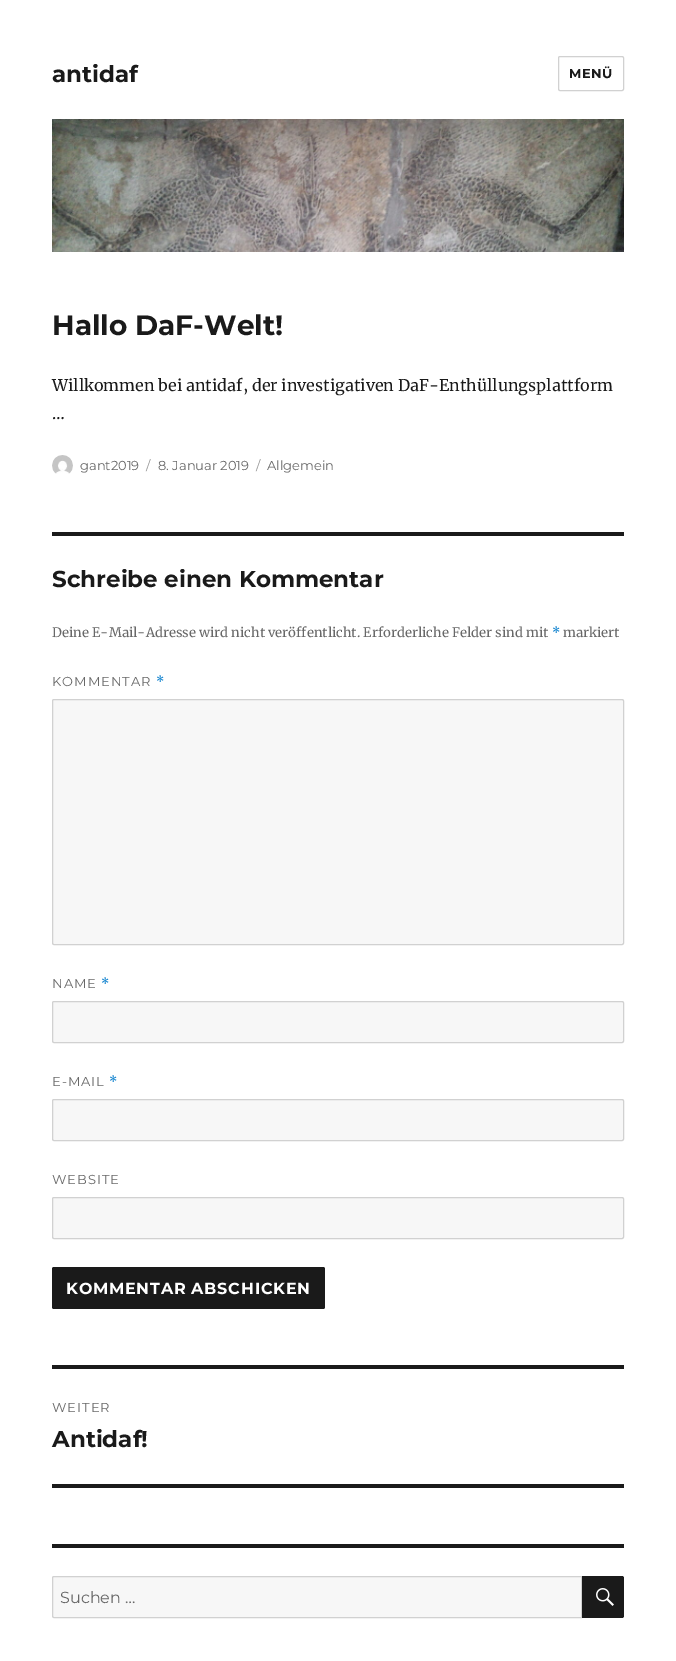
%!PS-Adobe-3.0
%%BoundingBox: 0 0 676 1661
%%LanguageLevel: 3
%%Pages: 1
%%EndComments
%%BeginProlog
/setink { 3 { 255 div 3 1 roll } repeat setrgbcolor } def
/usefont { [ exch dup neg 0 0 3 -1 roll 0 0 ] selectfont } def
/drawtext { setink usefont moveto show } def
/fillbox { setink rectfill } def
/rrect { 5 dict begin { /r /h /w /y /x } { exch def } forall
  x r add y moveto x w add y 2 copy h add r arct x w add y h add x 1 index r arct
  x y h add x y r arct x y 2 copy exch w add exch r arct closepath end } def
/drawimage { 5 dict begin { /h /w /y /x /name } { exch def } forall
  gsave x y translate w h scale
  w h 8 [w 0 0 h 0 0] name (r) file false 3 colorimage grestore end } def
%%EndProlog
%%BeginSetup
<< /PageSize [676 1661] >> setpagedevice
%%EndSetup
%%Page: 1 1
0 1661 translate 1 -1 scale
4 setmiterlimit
0 0 676 1661 255 255 255 fillbox
(antidaf) 52 82 /Montserrat-Thin 23 26 26 26 drawtext
209 209 209 setink
558.5 56.5 65 34 1.5 rrect stroke
/Montserrat-Thin 13 usefont
26 26 26 setink
569 78 moveto 0.5 0 (MENÜ) ashow
(assets/img1.rgb) 52 119 572 133 drawimage
(Hallo DaF-Welt!) 52 335 /Montserrat-Thin 28 26 26 26 drawtext
(Willkommen bei antidaf, der investigativen DaF-Enthüllungsplattform) 52 391 /Merriweather-Regular 16 26 26 26 drawtext
(…) 52 419 /Merriweather-Regular 16 26 26 26 drawtext
(assets/img2.rgb) 52 455 21 19 drawimage
(gant2019) 80 470 /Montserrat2-Thin 13 104 104 104 drawtext
(/) 146 470 /Montserrat2-Thin 13 149 149 149 drawtext
(8. Januar 2019) 158 470 /Montserrat2-Thin 13 104 104 104 drawtext
(/) 256 470 /Montserrat2-Thin 13 149 149 149 drawtext
(Allgemein) 267 470 /Montserrat2-Thin 13 104 104 104 drawtext
52 532 572 4 26 26 26 fillbox
(Schreibe einen Kommentar) 52 587 /Montserrat-Thin 23 26 26 26 drawtext
(Deine E-Mail-Adresse wird nicht veröffentlicht. Erforderliche Felder sind mit) 52 637 /Merriweather-Regular 13 104 104 104 drawtext
(*) 552 637 /Merriweather-Regular 13 0 122 204 drawtext
(markiert) 563 637 /Merriweather-Regular 13 104 104 104 drawtext
/Montserrat2-Thin 13 usefont
52 686 moveto 1 0 (KOMMENTAR) ashow
/Merriweather-Regular 13 usefont
0 122 204 setink
156 686 moveto 1 0 (*) ashow
247 247 247 setink
52.5 699.5 571 245 1.5 rrect gsave fill grestore
209 209 209 setink
stroke
/Montserrat2-Thin 13 usefont
104 104 104 setink
52 988 moveto 1 0 (NAME) ashow
/Merriweather-Regular 13 usefont
0 122 204 setink
101 988 moveto 1 0 (*) ashow
247 247 247 setink
52.5 1001.5 571 41 1.5 rrect gsave fill grestore
209 209 209 setink
stroke
/Montserrat2-Thin 13 usefont
104 104 104 setink
52 1086 moveto 1 0 (E-MAIL) ashow
/Merriweather-Regular 13 usefont
0 122 204 setink
109 1086 moveto 1 0 (*) ashow
247 247 247 setink
52.5 1099.5 571 41 1.5 rrect gsave fill grestore
209 209 209 setink
stroke
/Montserrat2-Thin 13 usefont
104 104 104 setink
52 1184 moveto 1 0 (WEBSITE) ashow
247 247 247 setink
52.5 1197.5 571 41 1.5 rrect gsave fill grestore
209 209 209 setink
stroke
26 26 26 setink
52 1267 273 42 2 rrect fill
/Montserrat-Thin 16 usefont
255 255 255 setink
66 1294 moveto 0.75 0 (KOMMENTAR ABSCHICKEN) ashow
52 1365 572 4 26 26 26 fillbox
52 1484 572 4 26 26 26 fillbox
/Montserrat2-Thin 13 usefont
104 104 104 setink
52 1412 moveto 1 0 (WEITER) ashow
(Antidaf!) 52 1447 /Montserrat-Thin 23 26 26 26 drawtext
52 1544 572 4 26 26 26 fillbox
247 247 247 setink
54 1576.5 moveto 581.5 1576.5 lineto 581.5 1617.5 lineto 54 1617.5 lineto 53 1617.5 52.5 1617 52.5 1616 curveto 52.5 1578 lineto 52.5 1577 53 1576.5 54 1576.5 curveto closepath gsave fill grestore
209 209 209 setink
stroke
(Suchen …) 60 1603 /Montserrat2-Thin 16 104 104 104 drawtext
26 26 26 setink
582 1576 moveto 622 1576 lineto 623 1576 624 1577 624 1578 curveto 624 1616 lineto 624 1617 623 1618 622 1618 curveto 582 1618 lineto closepath fill
(assets/img3.rgb) 596 1588 18 18 drawimage
showpage
%%EOF
